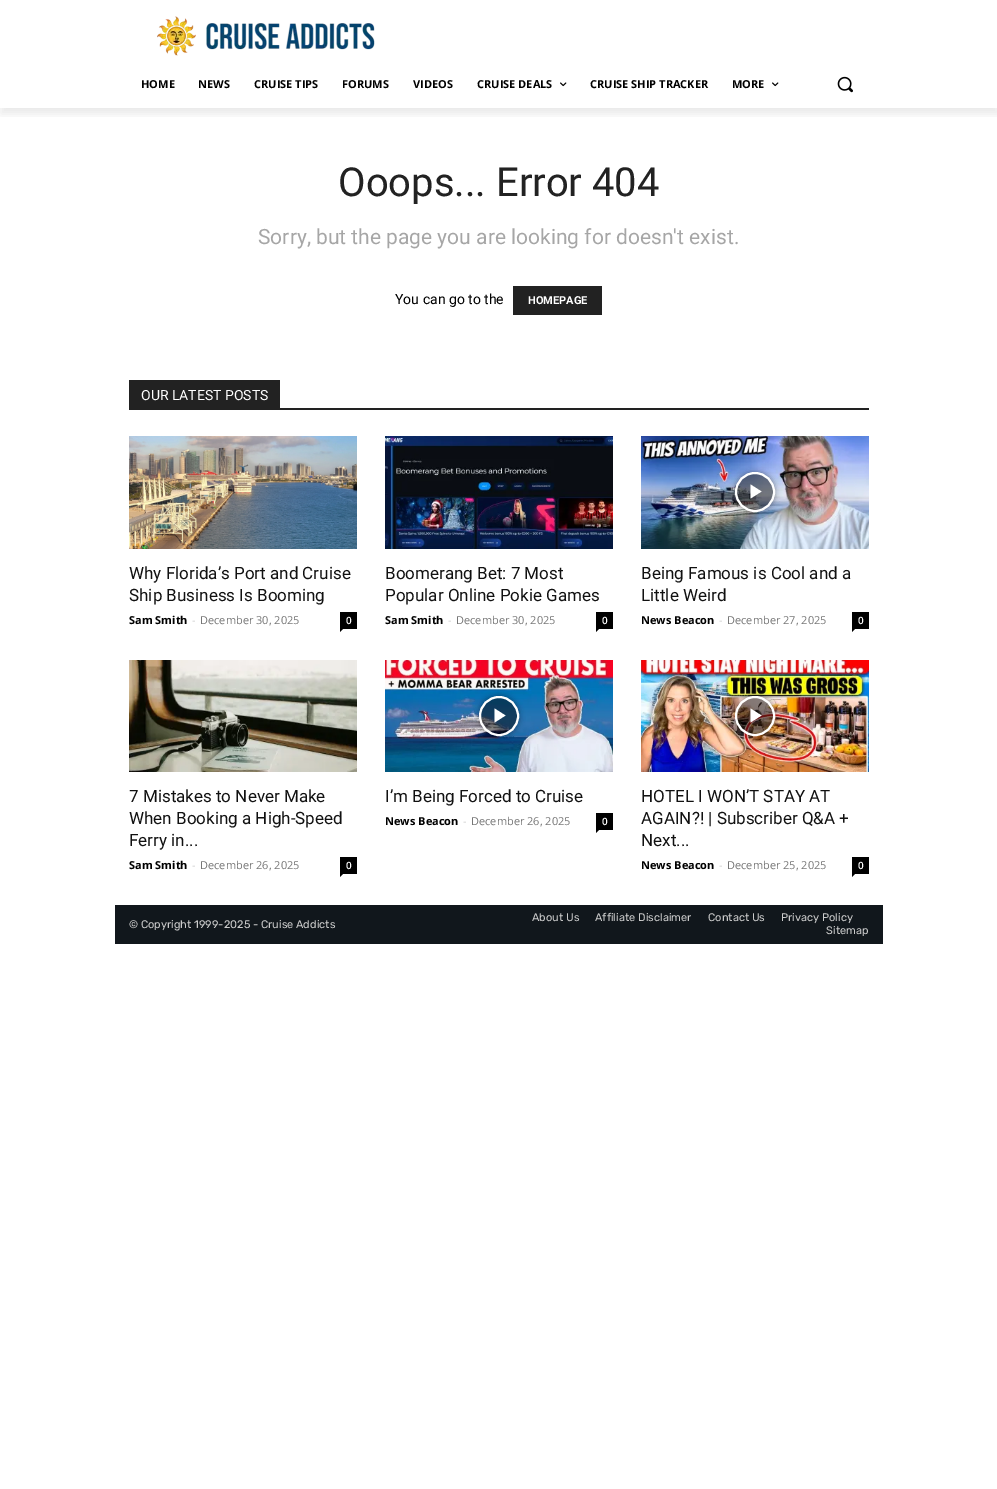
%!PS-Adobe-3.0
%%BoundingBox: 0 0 997 1489
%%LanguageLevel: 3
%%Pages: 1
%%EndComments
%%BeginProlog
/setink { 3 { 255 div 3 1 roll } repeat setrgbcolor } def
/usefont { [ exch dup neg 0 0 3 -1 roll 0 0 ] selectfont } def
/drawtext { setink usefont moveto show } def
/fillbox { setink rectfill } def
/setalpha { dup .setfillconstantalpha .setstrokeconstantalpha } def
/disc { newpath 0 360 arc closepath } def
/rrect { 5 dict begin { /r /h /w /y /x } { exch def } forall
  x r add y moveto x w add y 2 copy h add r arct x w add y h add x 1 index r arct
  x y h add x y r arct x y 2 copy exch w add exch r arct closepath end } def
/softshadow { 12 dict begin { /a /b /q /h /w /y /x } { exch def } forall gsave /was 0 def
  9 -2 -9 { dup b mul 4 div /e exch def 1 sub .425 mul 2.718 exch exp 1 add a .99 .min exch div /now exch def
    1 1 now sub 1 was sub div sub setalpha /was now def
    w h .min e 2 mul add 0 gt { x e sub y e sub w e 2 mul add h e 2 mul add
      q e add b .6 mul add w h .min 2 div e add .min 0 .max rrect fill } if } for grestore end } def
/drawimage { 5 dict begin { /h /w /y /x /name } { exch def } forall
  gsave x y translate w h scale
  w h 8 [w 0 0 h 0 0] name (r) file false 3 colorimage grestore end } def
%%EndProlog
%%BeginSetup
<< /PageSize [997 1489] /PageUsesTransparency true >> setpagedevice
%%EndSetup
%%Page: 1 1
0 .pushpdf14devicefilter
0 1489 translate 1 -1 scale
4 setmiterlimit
0 0 997 1489 255 255 255 fillbox
(assets/img1.rgb) 157 16 218 40 drawimage
gsave
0 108 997 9 rectclip
0 0 0 setink
1 6 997 108 0 4 0.08 softshadow
grestore
(HOME) 141 88 /OpenSans-Bold 11 0 0 0 drawtext
(NEWS) 198 88 /OpenSans-Bold 11 0 0 0 drawtext
(CRUISE TIPS) 254 88 /OpenSans-Bold 11 0 0 0 drawtext
(FORUMS) 342 88 /OpenSans-Bold 11 0 0 0 drawtext
(VIDEOS) 413 88 /OpenSans-Bold 11 0 0 0 drawtext
(CRUISE DEALS) 477 88 /OpenSans-Bold 11 0 0 0 drawtext
(assets/img2.rgb) 560 82 7 5 drawimage
(CRUISE SHIP TRACKER) 590 88 /OpenSans-Bold 11 0 0 0 drawtext
(MORE) 732 88 /OpenSans-Bold 11 0 0 0 drawtext
(assets/img2.rgb) 772 82 7 5 drawimage
(assets/img3.rgb) 837 76 16 17 drawimage
(Ooops... Error 404) 338 196 /Roboto-Regular 40 34 34 34 drawtext
(Sorry, but the page you are looking for doesn't exist.) 258 244 /Roboto-Regular 21 166 166 166 drawtext
(You can go to the) 395 304 /Roboto-Regular 14 0 0 0 drawtext
513 286 89 29 34 34 34 fillbox
(HOMEPAGE) 528 304 /Roboto-Bold 11 255 255 255 drawtext
129 408 740 2 34 34 34 fillbox
129 380 151 28 34 34 34 fillbox
(OUR LATEST POSTS) 141 400 /Roboto-Regular 14 255 255 255 drawtext
(assets/img4.rgb) 129 436 228 113 drawimage
(Why Florida’s Port and Cruise) 129 579 /Roboto-Regular 17 17 17 17 drawtext
(Ship Business Is Booming) 129 601 /Roboto-Regular 17 17 17 17 drawtext
(Sam Smith) 129 624 /OpenSans-Bold 11 0 0 0 drawtext
(-) 192 624 /OpenSans-Regular 11 204 204 204 drawtext
(December 30, 2025) 200 624 /OpenSans-Regular 11 118 118 118 drawtext
340 612 17 17 0 0 0 fillbox
(0) 346 624 /OpenSans-SemiBold 10 255 255 255 drawtext
0 0 0 setink
340 629 moveto 343 629 lineto 340 632 lineto closepath fill
(assets/img5.rgb) 385 436 228 113 drawimage
(Boomerang Bet: 7 Most) 385 579 /Roboto-Regular 17 17 17 17 drawtext
(Popular Online Pokie Games) 385 601 /Roboto-Regular 17 17 17 17 drawtext
(Sam Smith) 385 624 /OpenSans-Bold 11 0 0 0 drawtext
(-) 448 624 /OpenSans-Regular 11 204 204 204 drawtext
(December 30, 2025) 456 624 /OpenSans-Regular 11 118 118 118 drawtext
596 612 17 17 0 0 0 fillbox
(0) 602 624 /OpenSans-SemiBold 10 255 255 255 drawtext
0 0 0 setink
596 629 moveto 599 629 lineto 596 632 lineto closepath fill
(assets/img6.rgb) 641 436 228 113 drawimage
gsave
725 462 moveto 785 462 lineto 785 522 lineto 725 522 lineto closepath 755 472 moveto 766 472 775 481 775 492 curveto 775 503 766 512 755 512 curveto 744 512 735 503 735 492 curveto 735 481 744 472 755 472 curveto closepath eoclip newpath
735 472 40 40 20 3 0.4 softshadow
grestore
0.48 setalpha
755 492 19 disc fill
1 setalpha
255 255 255 setink
2 setlinewidth
755 492 19 disc stroke
750.5 484.5 moveto 750.5 498.5 lineto 761.5 491.5 lineto closepath fill
(Being Famous is Cool and a) 641 579 /Roboto-Regular 17 17 17 17 drawtext
(Little Weird) 641 601 /Roboto-Regular 17 17 17 17 drawtext
(News Beacon) 641 624 /OpenSans-Bold 11 0 0 0 drawtext
(-) 719 624 /OpenSans-Regular 11 204 204 204 drawtext
(December 27, 2025) 727 624 /OpenSans-Regular 11 118 118 118 drawtext
852 612 17 17 0 0 0 fillbox
(0) 858 624 /OpenSans-SemiBold 10 255 255 255 drawtext
0 0 0 setink
852 629 moveto 855 629 lineto 852 632 lineto closepath fill
(assets/img7.rgb) 129 660 228 112 drawimage
(7 Mistakes to Never Make) 129 802 /Roboto-Regular 17 17 17 17 drawtext
(When Booking a High-Speed) 129 824 /Roboto-Regular 17 17 17 17 drawtext
(Ferry in...) 129 846 /Roboto-Regular 17 17 17 17 drawtext
(Sam Smith) 129 869 /OpenSans-Bold 11 0 0 0 drawtext
(-) 192 869 /OpenSans-Regular 11 204 204 204 drawtext
(December 26, 2025) 200 869 /OpenSans-Regular 11 118 118 118 drawtext
340 857 17 17 0 0 0 fillbox
(0) 346 869 /OpenSans-SemiBold 10 255 255 255 drawtext
0 0 0 setink
340 874 moveto 343 874 lineto 340 877 lineto closepath fill
(assets/img8.rgb) 385 660 228 112 drawimage
gsave
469 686 moveto 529 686 lineto 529 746 lineto 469 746 lineto closepath 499 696 moveto 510 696 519 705 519 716 curveto 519 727 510 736 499 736 curveto 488 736 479 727 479 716 curveto 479 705 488 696 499 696 curveto closepath eoclip newpath
479 696 40 40 20 3 0.4 softshadow
grestore
0.48 setalpha
499 716 19 disc fill
1 setalpha
255 255 255 setink
499 716 19 disc stroke
494.5 708.5 moveto 494.5 722.5 lineto 505.5 715.5 lineto closepath fill
(I’m Being Forced to Cruise) 385 802 /Roboto-Regular 17 17 17 17 drawtext
(News Beacon) 385 825 /OpenSans-Bold 11 0 0 0 drawtext
(-) 463 825 /OpenSans-Regular 11 204 204 204 drawtext
(December 26, 2025) 471 825 /OpenSans-Regular 11 118 118 118 drawtext
596 813 17 17 0 0 0 fillbox
(0) 602 825 /OpenSans-SemiBold 10 255 255 255 drawtext
0 0 0 setink
596 830 moveto 599 830 lineto 596 833 lineto closepath fill
(assets/img9.rgb) 641 660 228 112 drawimage
gsave
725 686 moveto 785 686 lineto 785 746 lineto 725 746 lineto closepath 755 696 moveto 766 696 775 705 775 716 curveto 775 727 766 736 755 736 curveto 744 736 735 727 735 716 curveto 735 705 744 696 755 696 curveto closepath eoclip newpath
735 696 40 40 20 3 0.4 softshadow
grestore
0.48 setalpha
755 716 19 disc fill
1 setalpha
255 255 255 setink
755 716 19 disc stroke
750.5 708.5 moveto 750.5 722.5 lineto 761.5 715.5 lineto closepath fill
(HOTEL I WON’T STAY AT) 641 802 /Roboto-Regular 17 17 17 17 drawtext
(AGAIN?! | Subscriber Q&A +) 641 824 /Roboto-Regular 17 17 17 17 drawtext
(Next...) 641 846 /Roboto-Regular 17 17 17 17 drawtext
(News Beacon) 641 869 /OpenSans-Bold 11 0 0 0 drawtext
(-) 719 869 /OpenSans-Regular 11 204 204 204 drawtext
(December 25, 2025) 727 869 /OpenSans-Regular 11 118 118 118 drawtext
852 857 17 17 0 0 0 fillbox
(0) 858 869 /OpenSans-SemiBold 10 255 255 255 drawtext
0 0 0 setink
852 874 moveto 855 874 lineto 852 877 lineto closepath fill
115 905 768 39 17 23 28 fillbox
(© Copyright 1999-2025 - Cruise Addicts) 129 928 /Rubik-Light 11 204 204 204 drawtext
(About Us) 532 921 /Rubik-Light 11 204 204 204 drawtext
(Affiliate Disclaimer) 595 921 /Rubik-Light 11 204 204 204 drawtext
(Contact Us) 708 921 /Rubik-Light 11 204 204 204 drawtext
(Privacy Policy) 781 921 /Rubik-Light 11 204 204 204 drawtext
(Sitemap) 826 934 /Rubik-Light 11 204 204 204 drawtext
.poppdf14devicefilter showpage
%%EOF
